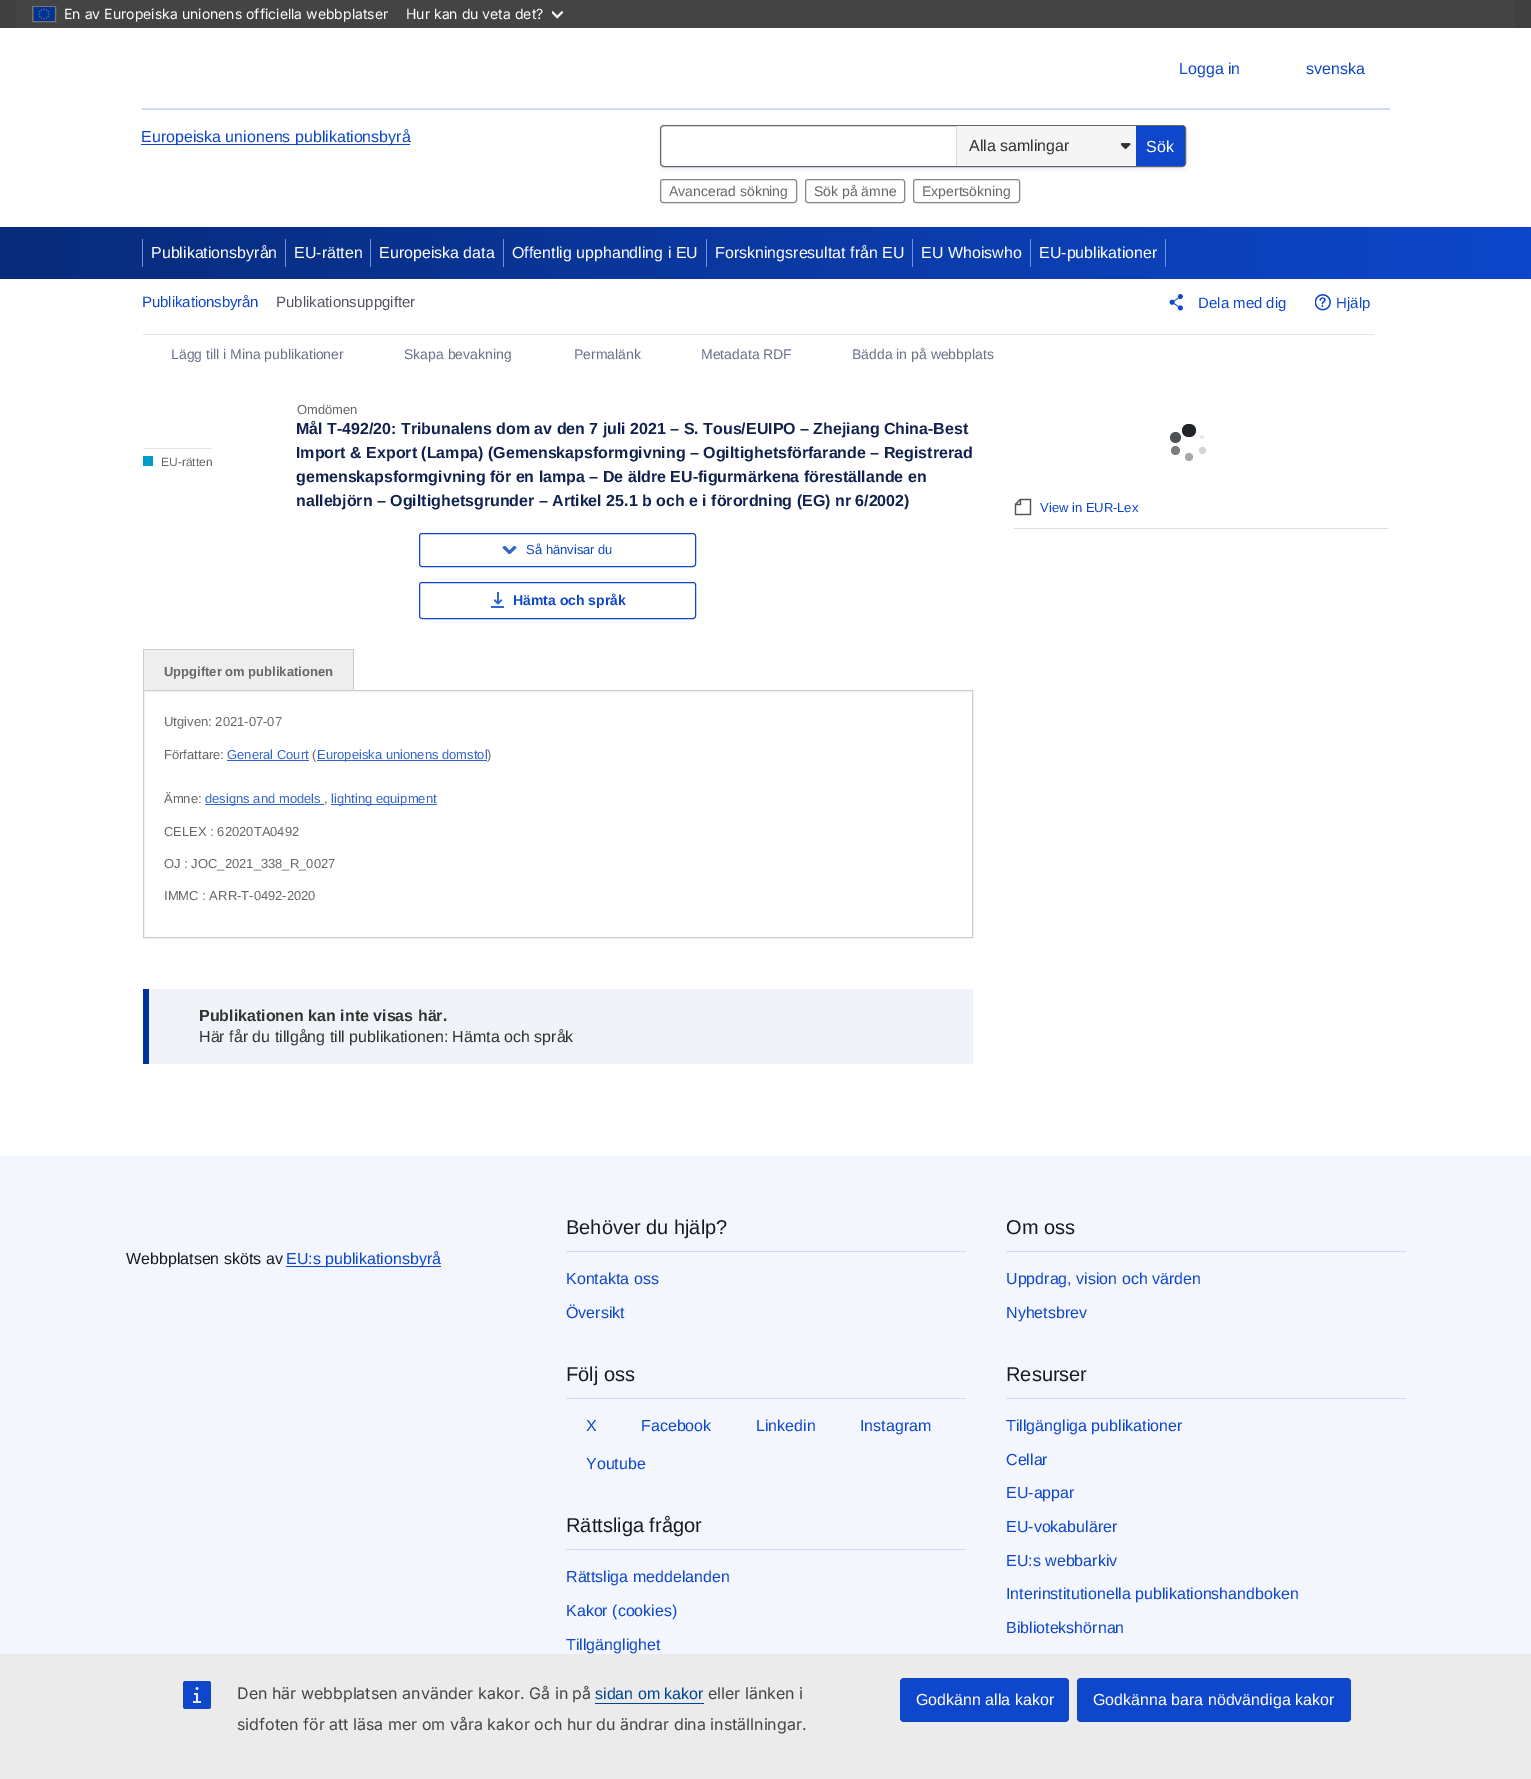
%!PS-Adobe-3.0
%%BoundingBox: 0 0 1531 1779
%%LanguageLevel: 3
%%Pages: 1
%%EndComments
%%BeginProlog
/setink { 3 { 255 div 3 1 roll } repeat setrgbcolor } def
/usefont { [ exch dup neg 0 0 3 -1 roll 0 0 ] selectfont } def
/drawtext { setink usefont moveto show } def
/fillbox { setink rectfill } def
/setalpha { dup .setfillconstantalpha .setstrokeconstantalpha } def
/disc { newpath 0 360 arc closepath } def
/rrect { 5 dict begin { /r /h /w /y /x } { exch def } forall
  x r add y moveto x w add y 2 copy h add r arct x w add y h add x 1 index r arct
  x y h add x y r arct x y 2 copy exch w add exch r arct closepath end } def
/softshadow { 12 dict begin { /a /b /q /h /w /y /x } { exch def } forall gsave /was 0 def
  9 -2 -9 { dup b mul 4 div /e exch def 1 sub .425 mul 2.718 exch exp 1 add a .99 .min exch div /now exch def
    1 1 now sub 1 was sub div sub setalpha /was now def
    w h .min e 2 mul add 0 gt { x e sub y e sub w e 2 mul add h e 2 mul add
      q e add b .6 mul add w h .min 2 div e add .min 0 .max rrect fill } if } for grestore end } def
/drawimage { 5 dict begin { /h /w /y /x /name } { exch def } forall
  gsave x y translate w h scale
  w h 8 [w 0 0 h 0 0] name (r) file false 3 colorimage grestore end } def
%%EndProlog
%%BeginSetup
<< /PageSize [1531 1779] /PageUsesTransparency true >> setpagedevice
%%EndSetup
%%Page: 1 1
0 .pushpdf14devicefilter
0 1779 translate 1 -1 scale
4 setmiterlimit
0 0 1531 1779 255 255 255 fillbox
0 0 1531 28 64 64 64 fillbox
16 0 1499 28 68 68 68 fillbox
115 115 115 setink
32.5 6.5 23 15 rectstroke
(assets/img1.rgb) 34 7 21 14 drawimage
(En av Europeiska unionens officiella webbplatser) 64 19 /Inter-Regular 14 255 255 255 drawtext
(Hur kan du veta det?) 406 19 /Inter-Regular 14 255 255 255 drawtext
(assets/img2.rgb) 552 11 12 8 drawimage
0 1654 1531 125 235 235 235 fillbox
(assets/img3.rgb) 183 1681 28 28 drawimage
(Den här webbplatsen använder kakor. Gå in på) 237 1699 /Inter-Regular 16 68 68 68 drawtext
(sidan om kakor) 595 1699 /LiberationSans-Regular 16 0 68 148 drawtext
595 1703 109 1 0 68 148 fillbox
(eller länken i) 708 1699 /Inter-Regular 16 68 68 68 drawtext
(sidfoten för att läsa mer om våra kakor och hur du ändrar dina inställningar.) 237 1730 /Inter-Regular 16 68 68 68 drawtext
14 71 203 setink
900 1678 169 44 4 rrect fill
(Godkänn alla kakor) 916 1705 /LiberationSans-Regular 16 255 255 255 drawtext
14 71 203 setink
1077 1678 274 44 4 rrect fill
(Godkänna bara nödvändiga kakor) 1093 1705 /LiberationSans-Regular 16 255 255 255 drawtext
(Logga in) 1179 74 /LiberationSans-Regular 16 14 71 203 drawtext
(svenska) 1306 74 /LiberationSans-Regular 16 14 71 203 drawtext
142 108 1248 2 207 218 245 fillbox
141 144 269 1 14 71 203 fillbox
(Europeiska unionens publikationsbyrå) 141 142 /LiberationSans-Regular 16 14 71 203 drawtext
gsave
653 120 moveto 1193 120 lineto 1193 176 lineto 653 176 lineto closepath 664 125 moveto 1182 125 lineto 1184 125 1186 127 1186 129 curveto 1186 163 lineto 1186 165 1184 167 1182 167 curveto 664 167 lineto 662 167 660 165 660 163 curveto 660 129 lineto 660 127 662 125 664 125 curveto closepath eoclip newpath
9 49 142 setink
660 127 526 42 4 2 0.08 softshadow
grestore
102 102 102 setink
660.5 125.5 525 41 3.5 rrect stroke
957 126 179 40 245 245 245 fillbox
(assets/img4.rgb) 1121 143 10 6 drawimage
956 126 1 40 216 216 216 fillbox
(Alla samlingar) 969 151 /LiberationSans-Regular 16 51 51 51 drawtext
14 71 203 setink
1136 126 moveto 1183 126 lineto 1184 126 1185 127 1185 128 curveto 1185 164 lineto 1185 165 1184 166 1183 166 curveto 1136 166 lineto closepath fill
(Sök) 1146 152 /LiberationSans-Regular 16 255 255 255 drawtext
133 133 133 setink
660.5 179.5 136 23 2.5 rrect stroke
(Avancerad sökning) 669 196 /LiberationSans-Regular 14 102 102 102 drawtext
133 133 133 setink
805.5 179.5 99 23 2.5 rrect stroke
(Sök på ämne) 814 196 /LiberationSans-Regular 14 102 102 102 drawtext
133 133 133 setink
913.5 179.5 106 23 2.5 rrect stroke
(Expertsökning) 922 196 /LiberationSans-Regular 14 102 102 102 drawtext
gsave 0 227 moveto 1531 227 lineto 1531 279 lineto 0 279 lineto closepath clip newpath
<< /ShadingType 2 /ColorSpace /DeviceRGB /Coords [0 253 1531 253] /Extend [true true] /Function << /FunctionType 2 /Domain [0 1] /C0 [0.031 0.169 0.478] /C1 [0.055 0.278 0.796] /N 1 >> >> shfill grestore
142 239 1 28 110 145 224 fillbox
(Publikationsbyrån) 151 258 /LiberationSans-Regular 16 255 255 255 drawtext
285 239 1 28 110 145 224 fillbox
(EU-rätten) 294 258 /LiberationSans-Regular 16 255 255 255 drawtext
370 239 1 28 110 145 224 fillbox
(Europeiska data) 379 258 /LiberationSans-Regular 16 255 255 255 drawtext
503 239 1 28 110 145 224 fillbox
(Offentlig upphandling i EU) 512 258 /LiberationSans-Regular 16 255 255 255 drawtext
706 239 1 28 110 145 224 fillbox
(Forskningsresultat från EU) 715 258 /LiberationSans-Regular 16 255 255 255 drawtext
912 239 1 28 110 145 224 fillbox
(EU Whoiswho) 921 258 /LiberationSans-Regular 16 255 255 255 drawtext
1030 239 1 28 110 145 224 fillbox
(EU-publikationer) 1039 258 /LiberationSans-Regular 16 255 255 255 drawtext
1165 239 1 28 110 145 224 fillbox
/LiberationSans-Regular 15 usefont
14 71 203 setink
142 307 moveto -0.1 0 (Publikationsbyrån) ashow
(Publikationsuppgifter) 276 307 /LiberationSans-Regular 15 81 85 96 drawtext
(assets/img5.rgb) 1169 294 14 17 drawimage
(Dela med dig) 1198 308 /LiberationSans-Regular 15 14 71 203 drawtext
(assets/img6.rgb) 1315 294 16 17 drawimage
(Hjälp) 1336 308 /LiberationSans-Regular 15 14 71 203 drawtext
143 334 1231 1 227 227 227 fillbox
(Lägg till i Mina publikationer) 171 359 /LiberationSans-Regular 14 105 113 136 drawtext
(Skapa bevakning) 404 359 /LiberationSans-Regular 14 105 113 136 drawtext
(Permalänk) 574 359 /LiberationSans-Regular 14 105 113 136 drawtext
(Metadata RDF) 701 359 /LiberationSans-Regular 14 105 113 136 drawtext
(Bädda in på webbplats) 852 359 /LiberationSans-Regular 14 105 113 136 drawtext
(Omdömen) 297 414 /LiberationSans-Regular 13 102 102 102 drawtext
143 448 69 1 228 228 228 fillbox
0 153 204 setink
143 456 10 10 1 rrect fill
(EU-rätten) 161 466 /LiberationSans-Regular 12 102 102 102 drawtext
(Mål T-492/20: Tribunalens dom av den 7 juli 2021 – S. Tous/EUIPO – Zhejiang China-Best) 296 434 /LiberationSans-Bold 16 17 34 80 drawtext
(Import & Export \(Lampa\) \(Gemenskapsformgivning – Ogiltighetsförfarande – Registrerad) 296 458 /LiberationSans-Bold 16 17 34 80 drawtext
(gemenskapsformgivning för en lampa – De äldre EU-figurmärkena föreställande en) 296 482 /LiberationSans-Bold 16 17 34 80 drawtext
(nallebjörn – Ogiltighetsgrunder – Artikel 25.1 b och e i förordning \(EG\) nr 6/2002\)) 296 506 /LiberationSans-Bold 16 17 34 80 drawtext
14 71 203 setink
419.5 533.5 276 33 2.5 rrect stroke
gsave
502 546 15 8 rectclip
51 102 204 setink
3 setlinewidth
503.5 546.5 moveto 509.5 552.5 lineto 515.5 546.5 lineto stroke
grestore
(Så hänvisar du) 526 554 /LiberationSans-Regular 13 14 71 203 drawtext
419.5 582.5 276 36 2.5 rrect stroke
(assets/img7.rgb) 491 592 13 16 drawimage
(Hämta och språk) 513 605 /LiberationSans-Bold 14 14 71 203 drawtext
143 650 211 40 238 238 238 fillbox
143 649 211 1 204 204 204 fillbox
354 649 moveto 354 690 lineto 353 689 lineto 353 650 lineto closepath fill
143 690 moveto 143 649 lineto 144 650 lineto 144 689 lineto closepath fill
(Uppgifter om publikationen) 164 676 /LiberationSans-Bold 13 102 102 102 drawtext
204 204 204 setink
143.5 690.5 829 247 rectstroke
(Utgiven: 2021-07-07) 164 726 /LiberationSans-Regular 13 102 102 102 drawtext
(Författare:) 164 759 /LiberationSans-Regular 13 102 102 102 drawtext
(General Court) 227 759 /LiberationSans-Regular 13 51 102 204 drawtext
227 760 82 1 51 102 204 fillbox
(\() 312 759 /LiberationSans-Regular 13 102 102 102 drawtext
317 760 170 1 51 102 204 fillbox
(Europeiska unionens domstol) 317 759 /LiberationSans-Regular 13 51 102 204 drawtext
(\)) 487 759 /LiberationSans-Regular 13 102 102 102 drawtext
(Ämne:) 164 803 /LiberationSans-Regular 13 102 102 102 drawtext
205 804 119 1 51 102 204 fillbox
(designs and models) 205 803 /LiberationSans-Regular 13 51 102 204 drawtext
(,) 324 803 /LiberationSans-Regular 13 102 102 102 drawtext
331 804 106 1 51 102 204 fillbox
(lighting equipment) 331 803 /LiberationSans-Regular 13 51 102 204 drawtext
(CELEX : 62020TA0492) 164 836 /LiberationSans-Regular 13 102 102 102 drawtext
(OJ : JOC_2021_338_R_0027) 164 868 /LiberationSans-Regular 13 102 102 102 drawtext
(IMMC : ARR-T-0492-2020) 164 900 /LiberationSans-Regular 13 102 102 102 drawtext
149 989 824 75 240 243 249 fillbox
143 989 6 75 0 51 153 fillbox
(Publikationen kan inte visas här.) 199 1021 /LiberationSans-Bold 16 51 51 51 drawtext
(Här får du tillgång till publikationen: Hämta och språk) 199 1042 /LiberationSans-Regular 16 51 51 51 drawtext
77 81 84 setink
1175.5 437.5 5.5 disc fill
122 124 127 setink
1175.5 450.5 4.5 disc fill
166 168 169 setink
1189 457 4 disc fill
211 211 212 setink
1202.5 450.5 3.5 disc fill
233 233 234 setink
1202 437 2 disc fill
33 37 41 setink
1182 424 14 13 6.5 rrect fill
1014 528 374 1 221 221 221 fillbox
(assets/img8.rgb) 1014 498 18 18 drawimage
(View in EUR-Lex) 1040 512 /LiberationSans-Regular 13 14 71 203 drawtext
0 1156 1531 498 243 246 252 fillbox
(Webbplatsen sköts av) 126 1264 /LiberationSans-Regular 16 23 26 34 drawtext
286 1266 155 1 14 71 203 fillbox
(EU:s publikationsbyrå) 286 1264 /LiberationSans-Regular 16 14 71 203 drawtext
566 1251 400 1 207 218 245 fillbox
(Behöver du hjälp?) 566 1234 /LiberationSans-Regular 20 23 26 34 drawtext
(Kontakta oss) 566 1284 /LiberationSans-Regular 16 14 71 203 drawtext
(Översikt) 566 1318 /LiberationSans-Regular 16 14 71 203 drawtext
566 1398 400 1 207 218 245 fillbox
(Följ oss) 566 1381 /LiberationSans-Regular 20 23 26 34 drawtext
(X) 586 1431 /LiberationSans-Regular 16 14 71 203 drawtext
(Facebook) 641 1431 /LiberationSans-Regular 16 14 71 203 drawtext
(Linkedin) 756 1431 /LiberationSans-Regular 16 14 71 203 drawtext
(Instagram) 860 1431 /LiberationSans-Regular 16 14 71 203 drawtext
(Youtube) 586 1469 /LiberationSans-Regular 16 14 71 203 drawtext
566 1549 400 1 207 218 245 fillbox
(Rättsliga frågor) 566 1532 /LiberationSans-Regular 20 23 26 34 drawtext
(Rättsliga meddelanden) 566 1582 /LiberationSans-Regular 16 14 71 203 drawtext
(Kakor \(cookies\)) 566 1616 /LiberationSans-Regular 16 14 71 203 drawtext
(Tillgänglighet) 566 1650 /LiberationSans-Regular 16 14 71 203 drawtext
1006 1251 400 1 207 218 245 fillbox
(Om oss) 1006 1234 /LiberationSans-Regular 20 23 26 34 drawtext
(Uppdrag, vision och värden) 1006 1284 /LiberationSans-Regular 16 14 71 203 drawtext
(Nyhetsbrev) 1006 1318 /LiberationSans-Regular 16 14 71 203 drawtext
1006 1398 400 1 207 218 245 fillbox
(Resurser) 1006 1381 /LiberationSans-Regular 20 23 26 34 drawtext
(Tillgängliga publikationer) 1006 1431 /LiberationSans-Regular 16 14 71 203 drawtext
(Cellar) 1006 1465 /LiberationSans-Regular 16 14 71 203 drawtext
(EU-appar) 1006 1498 /LiberationSans-Regular 16 14 71 203 drawtext
(EU-vokabulärer) 1006 1532 /LiberationSans-Regular 16 14 71 203 drawtext
(EU:s webbarkiv) 1006 1566 /LiberationSans-Regular 16 14 71 203 drawtext
(Interinstitutionella publikationshandboken) 1006 1599 /LiberationSans-Regular 16 14 71 203 drawtext
(Bibliotekshörnan) 1006 1633 /LiberationSans-Regular 16 14 71 203 drawtext
.poppdf14devicefilter showpage
%%EOF
